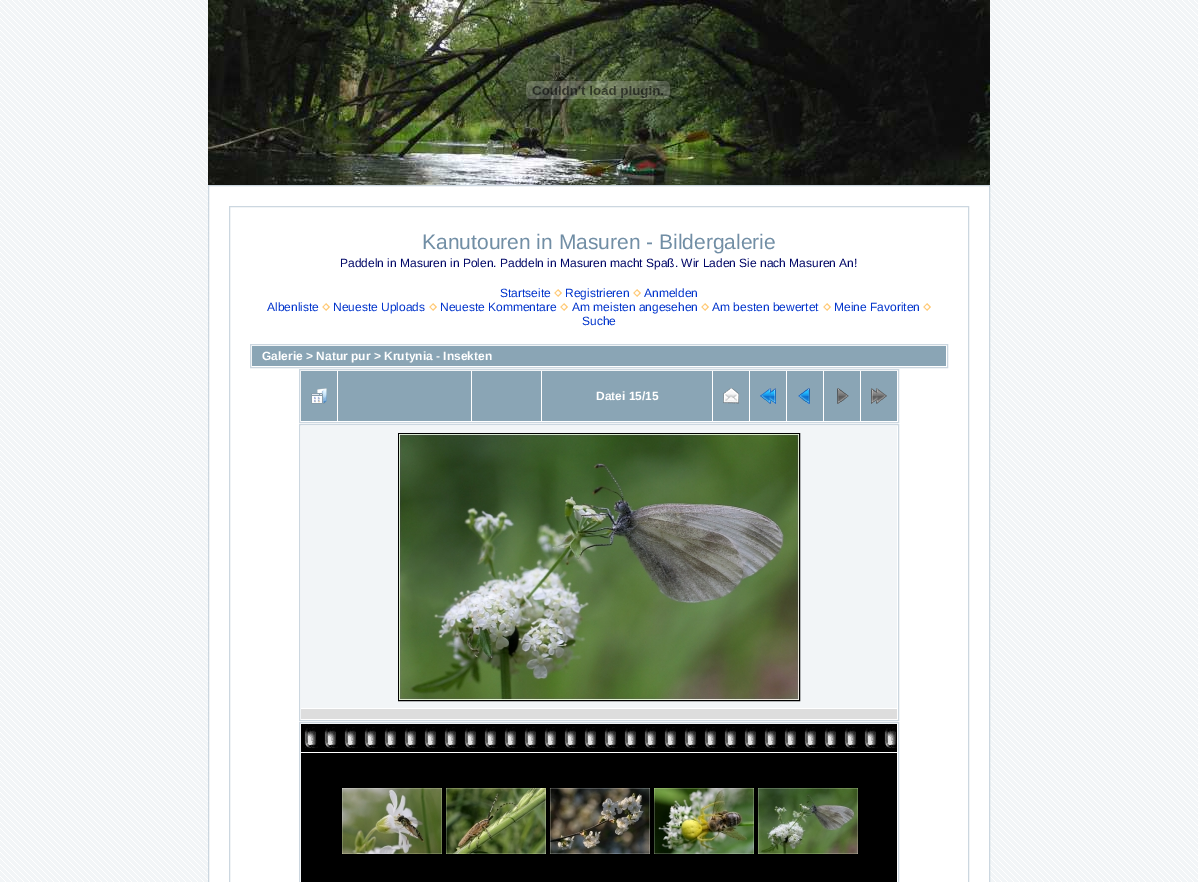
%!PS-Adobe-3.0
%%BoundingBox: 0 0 1198 882
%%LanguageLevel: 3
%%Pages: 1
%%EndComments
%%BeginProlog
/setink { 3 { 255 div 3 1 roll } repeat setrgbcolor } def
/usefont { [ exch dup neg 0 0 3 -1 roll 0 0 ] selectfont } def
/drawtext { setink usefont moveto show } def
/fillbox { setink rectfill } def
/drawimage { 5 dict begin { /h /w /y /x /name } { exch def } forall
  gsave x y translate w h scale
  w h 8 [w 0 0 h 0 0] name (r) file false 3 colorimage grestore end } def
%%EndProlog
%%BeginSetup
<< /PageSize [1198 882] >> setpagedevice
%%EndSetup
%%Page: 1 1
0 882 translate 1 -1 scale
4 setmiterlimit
0 0 1198 882 242 245 247 fillbox
(assets/img1.rgb) 0 0 1198 882 drawimage
(assets/img2.rgb) 208 0 782 185 drawimage
(assets/img3.rgb) 526 81 144 18 drawimage
255 255 255 setink
208.5 185.5 moveto 989.5 185.5 lineto 989.5 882.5 lineto 208.5 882.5 lineto closepath gsave fill grestore
204 215 224 setink
stroke
229.5 206.5 739 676 rectstroke
(Kanutouren in Masuren - Bildergalerie) 422 249 /LiberationSans-Regular 21 113 142 165 drawtext
(Paddeln in Masuren in Polen. Paddeln in Masuren macht Spaß. Wir Laden Sie nach Masuren An!) 340 267 /LiberationSans-Regular 12 0 6 102 drawtext
(Startseite) 500 297 /LiberationSans-Regular 12 0 51 204 drawtext
(assets/img4.rgb) 554 289 8 8 drawimage
(Registrieren) 565 297 /LiberationSans-Regular 12 0 51 204 drawtext
(assets/img4.rgb) 633 289 8 8 drawimage
(Anmelden) 644 297 /LiberationSans-Regular 12 0 51 204 drawtext
(Albenliste) 267 311 /LiberationSans-Regular 12 0 51 204 drawtext
(assets/img4.rgb) 322 303 8 8 drawimage
(Neueste Uploads) 333 311 /LiberationSans-Regular 12 0 51 204 drawtext
(assets/img4.rgb) 429 303 8 8 drawimage
(Neueste Kommentare) 440 311 /LiberationSans-Regular 12 0 51 204 drawtext
(assets/img4.rgb) 560 303 8 8 drawimage
(Am meisten angesehen) 572 311 /LiberationSans-Regular 12 0 51 204 drawtext
(assets/img4.rgb) 701 303 8 8 drawimage
(Am besten bewertet) 712 311 /LiberationSans-Regular 12 0 51 204 drawtext
(assets/img4.rgb) 823 303 8 8 drawimage
(Meine Favoriten) 834 311 /LiberationSans-Regular 12 0 51 204 drawtext
(assets/img4.rgb) 923 303 8 8 drawimage
(Suche) 582 325 /LiberationSans-Regular 12 0 51 204 drawtext
204 215 224 setink
250.5 344.5 697 23 rectstroke
252 346 694 20 138 165 181 fillbox
(Galerie > Natur pur > Krutynia - Insekten) 262 360 /LiberationSans-Bold 12 255 255 255 drawtext
204 215 224 setink
299.5 369.5 599 53 rectstroke
301 371 36 50 138 165 181 fillbox
(assets/img5.rgb) 311 388 16 16 drawimage
338 371 133 50 138 165 181 fillbox
472 371 69 50 138 165 181 fillbox
542 371 170 50 138 165 181 fillbox
(Datei 15/15) 596 400 /LiberationSans-Bold 12 255 255 255 drawtext
713 371 36 50 138 165 181 fillbox
(assets/img6.rgb) 723 388 16 16 drawimage
750 371 36 50 138 165 181 fillbox
(assets/img7.rgb) 760 388 16 16 drawimage
787 371 36 50 138 165 181 fillbox
(assets/img8.rgb) 798 388 12 16 drawimage
824 371 36 50 138 165 181 fillbox
(assets/img9.rgb) 837 388 12 16 drawimage
861 371 36 50 138 165 181 fillbox
(assets/img10.rgb) 871 388 16 16 drawimage
204 215 224 setink
299.5 424.5 599 296 rectstroke
301 426 596 282 242 245 247 fillbox
0 0 0 setink
398.5 433.5 401 267 rectstroke
(assets/img11.rgb) 399 434 400 266 drawimage
301 709 596 10 221 221 221 fillbox
204 215 224 setink
299.5 722.5 599 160 rectstroke
301 724 596 28 0 0 0 fillbox
(assets/img12.rgb) 304 724 593 24 drawimage
301 753 596 129 0 0 0 fillbox
(assets/img13.rgb) 342 788 100 66 drawimage
(assets/img14.rgb) 446 788 100 66 drawimage
(assets/img15.rgb) 550 788 100 66 drawimage
(assets/img16.rgb) 654 788 100 66 drawimage
(assets/img17.rgb) 758 788 100 66 drawimage
showpage
%%EOF
